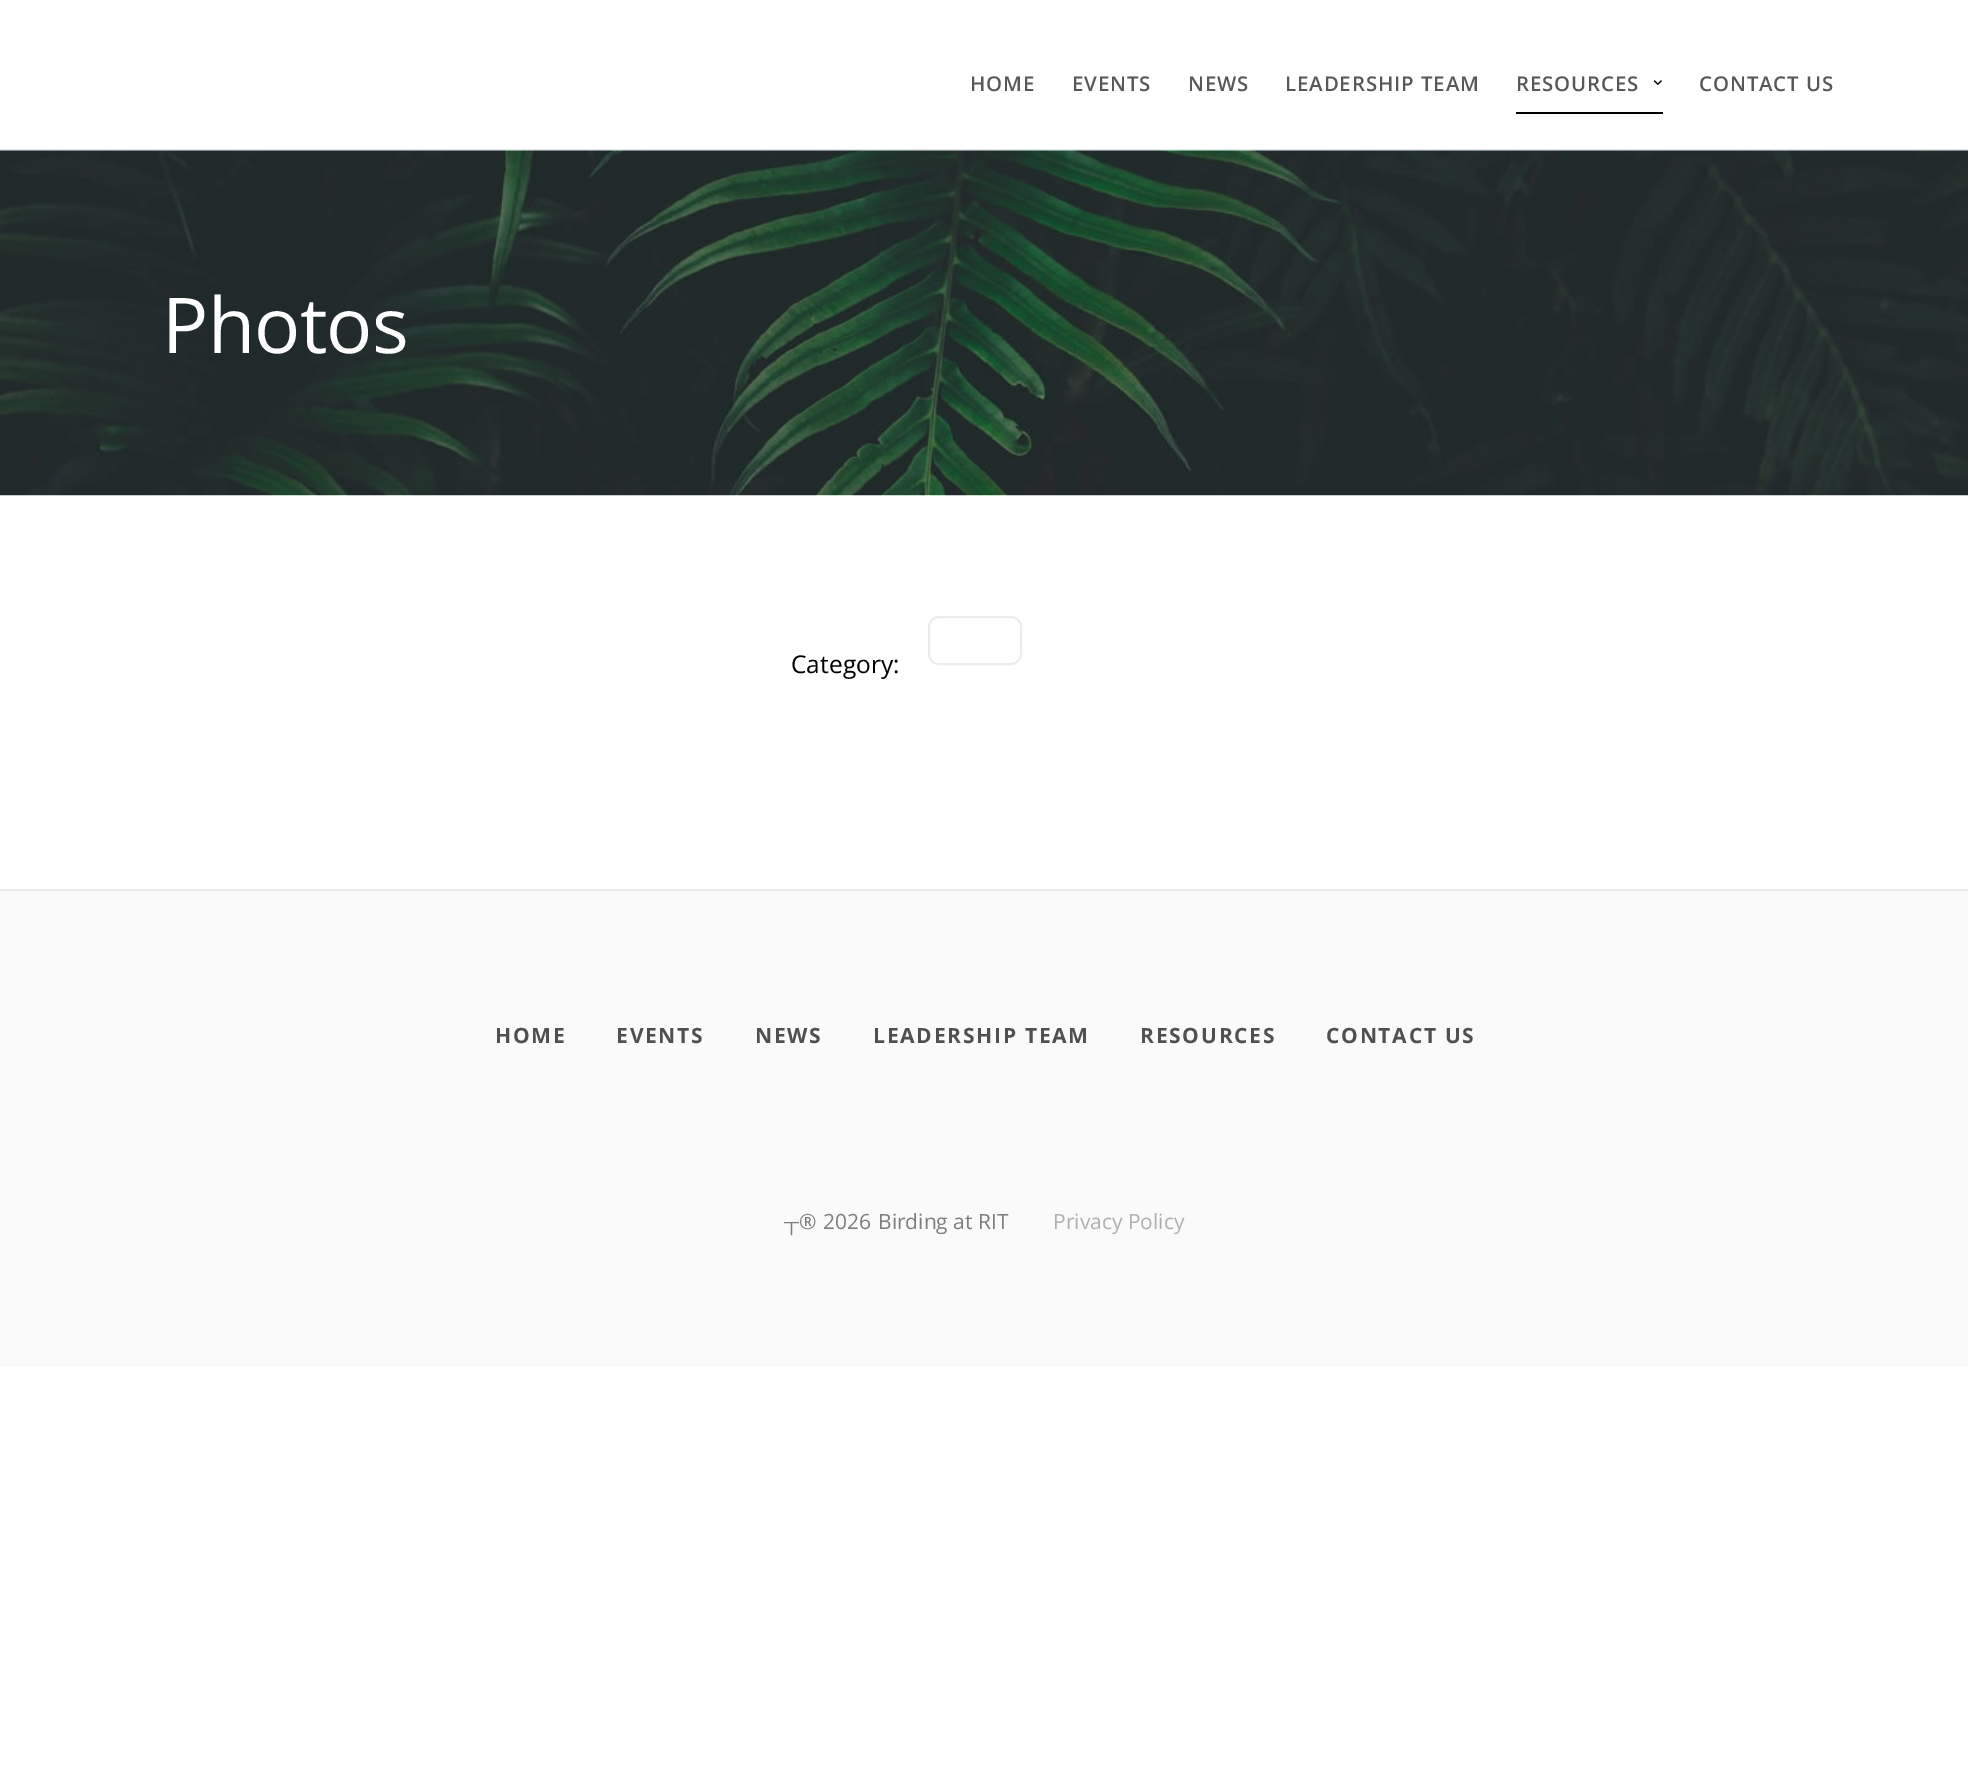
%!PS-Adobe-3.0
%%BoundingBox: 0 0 1968 1769
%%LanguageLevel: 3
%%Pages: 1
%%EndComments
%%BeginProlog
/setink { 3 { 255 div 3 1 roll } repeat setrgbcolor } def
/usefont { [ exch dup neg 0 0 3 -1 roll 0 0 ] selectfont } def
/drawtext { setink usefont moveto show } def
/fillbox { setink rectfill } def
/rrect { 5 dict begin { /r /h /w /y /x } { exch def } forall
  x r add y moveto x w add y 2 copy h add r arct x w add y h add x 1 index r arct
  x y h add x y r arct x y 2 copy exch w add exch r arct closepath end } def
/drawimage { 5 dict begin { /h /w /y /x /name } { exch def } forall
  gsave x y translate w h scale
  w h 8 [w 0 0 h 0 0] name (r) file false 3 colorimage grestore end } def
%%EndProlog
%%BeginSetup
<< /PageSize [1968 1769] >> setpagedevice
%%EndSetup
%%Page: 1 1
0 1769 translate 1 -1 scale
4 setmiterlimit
0 0 1968 1769 255 255 255 fillbox
0 149 1968 2 225 230 234 fillbox
/OpenSans-SemiBold 20.4 usefont
88 88 88 setink
970 91 moveto 0.9 0 (HOME) ashow
1072 91 moveto 0.9 0 (EVENTS) ashow
1188 91 moveto 0.9 0 (NEWS) ashow
1285 91 moveto 0.9 0 (LEADERSHIP TEAM) ashow
1516 112 147 2 0 0 0 fillbox
88 88 88 setink
1516 91 moveto 0.9 0 (RESOURCES) ashow
(assets/img1.rgb) 1653 80 9 5 drawimage
1699 91 moveto 0.9 0 (CONTACT US) ashow
(assets/img2.rgb) 0 150 1968 346 drawimage
/OpenSans-Regular 77 usefont
255 255 255 setink
162 353 moveto -0.75 0 (Photos) ashow
(Category:) 791 673 /OpenSans-Regular 24.5 0 0 0 drawtext
236 236 236 setink
2 setlinewidth
929 617 92 47 10 rrect stroke
0 891 1968 476 250 250 250 fillbox
0 889 1968 2 235 235 235 fillbox
/OpenSans-Bold 21 usefont
80 80 80 setink
495 1043 moveto 1.75 0 (HOME) ashow
616 1043 moveto 1.75 0 (EVENTS) ashow
755 1043 moveto 1.75 0 (NEWS) ashow
873 1043 moveto 1.75 0 (LEADERSHIP TEAM) ashow
1140 1043 moveto 1.75 0 (RESOURCES) ashow
1326 1043 moveto 1.75 0 (CONTACT US) ashow
(┬) 784 1229 /LiberationSans-Regular 21 125 125 125 drawtext
(®) 799 1229 /OpenSans-Regular 21 125 125 125 drawtext
(2026) 823 1229 /OpenSans-Regular 21 125 125 125 drawtext
(Birding at RIT) 878 1229 /OpenSans-Regular 21 125 125 125 drawtext
(Privacy Policy) 1053 1229 /OpenSans-Regular 21 176 176 176 drawtext
showpage
%%EOF
